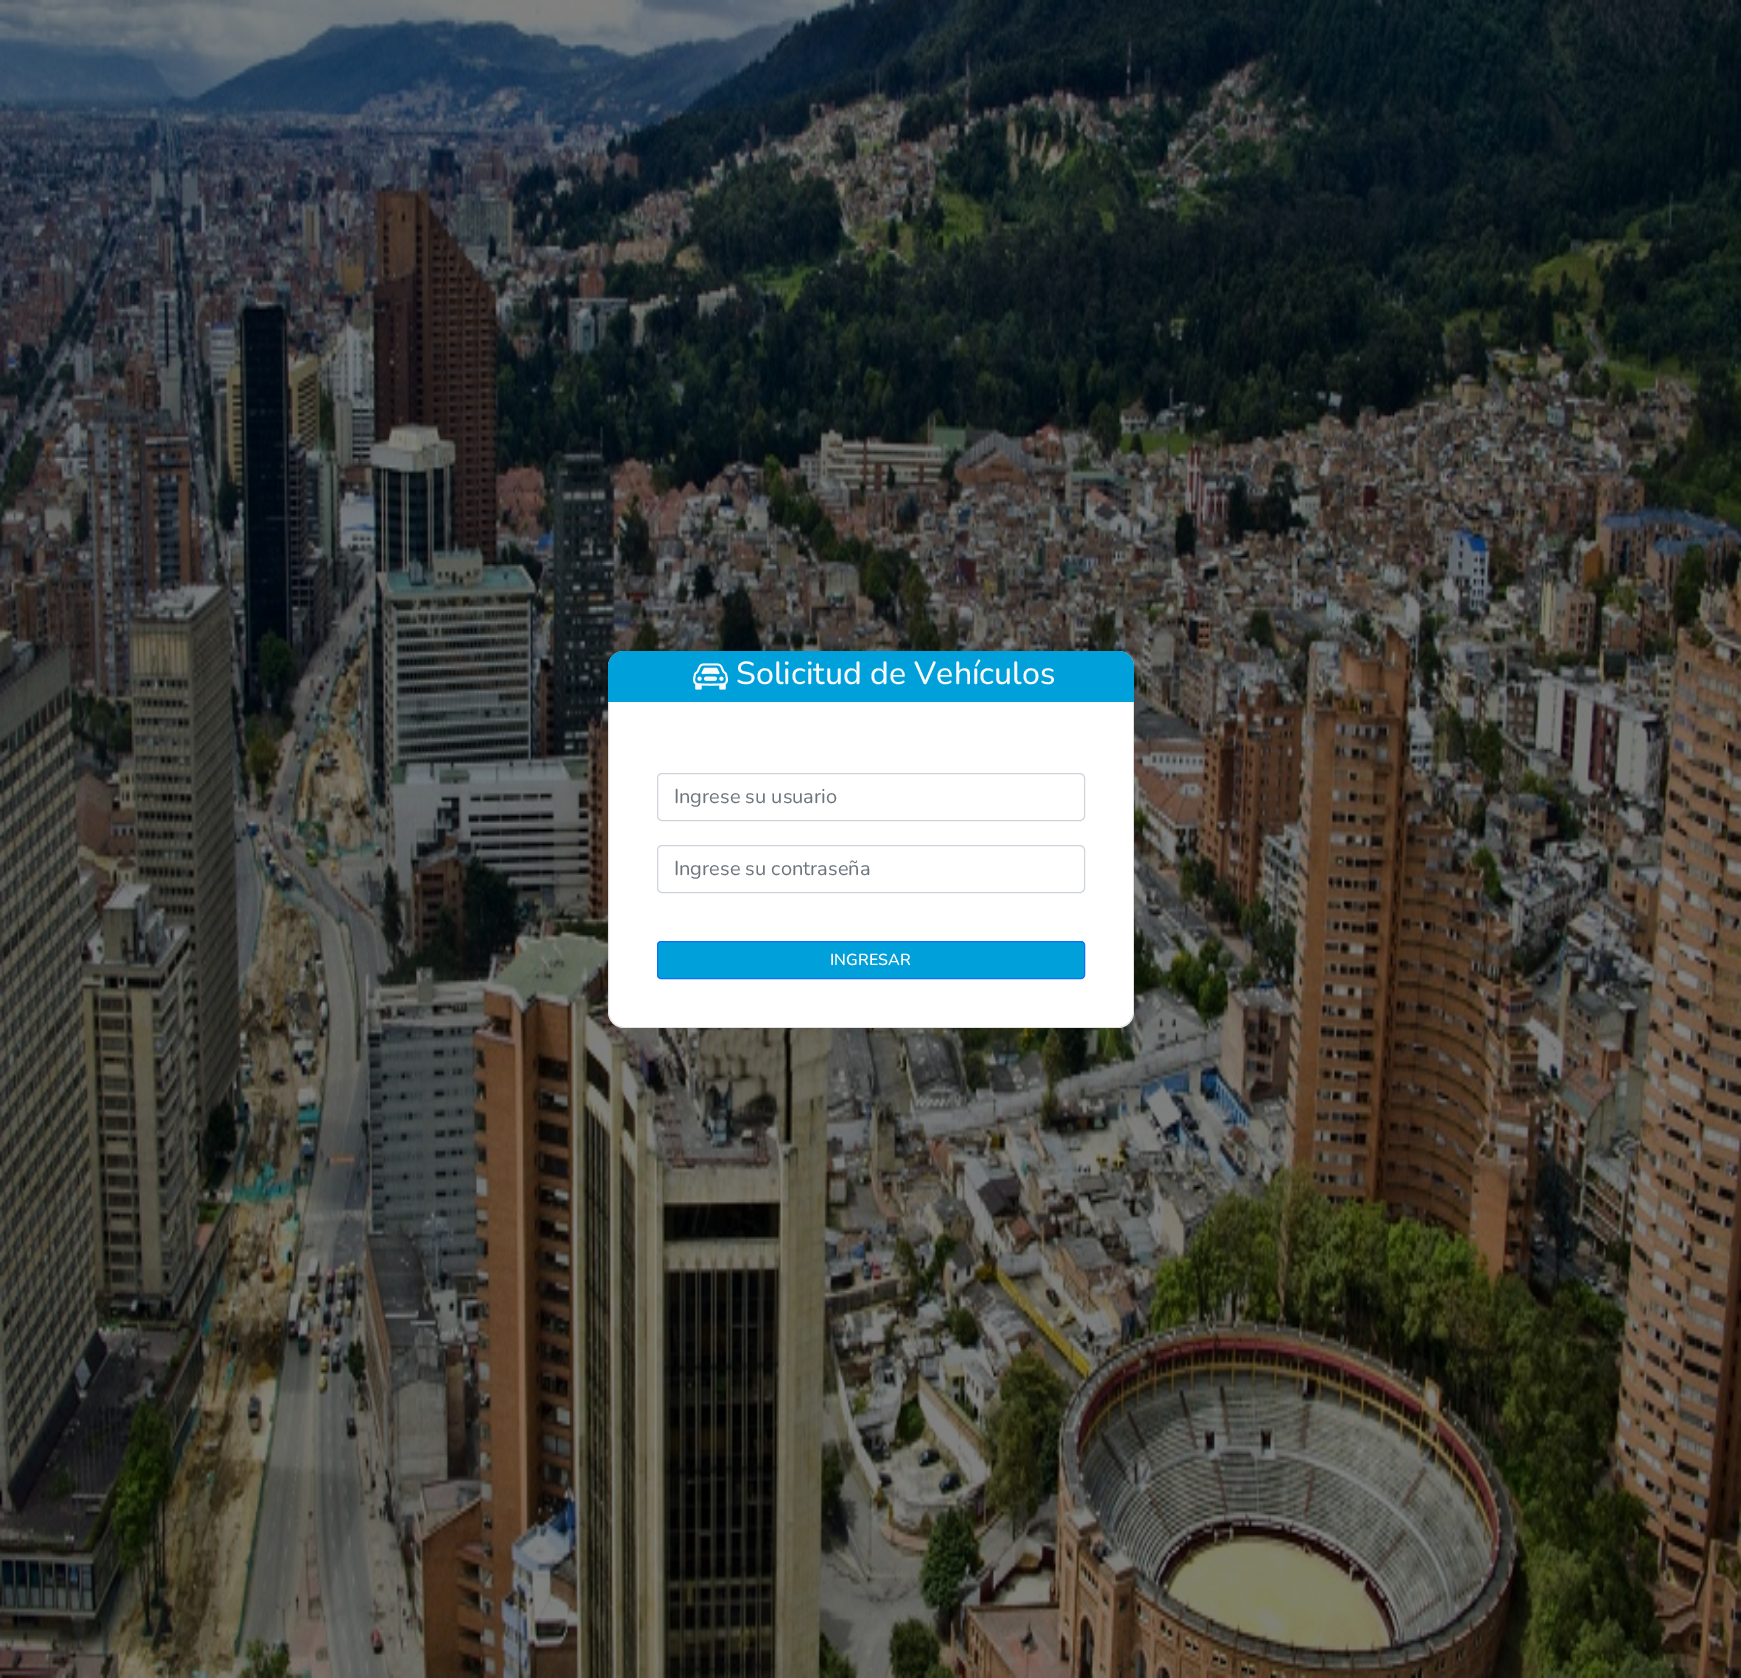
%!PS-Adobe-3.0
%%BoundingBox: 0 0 1741 1678
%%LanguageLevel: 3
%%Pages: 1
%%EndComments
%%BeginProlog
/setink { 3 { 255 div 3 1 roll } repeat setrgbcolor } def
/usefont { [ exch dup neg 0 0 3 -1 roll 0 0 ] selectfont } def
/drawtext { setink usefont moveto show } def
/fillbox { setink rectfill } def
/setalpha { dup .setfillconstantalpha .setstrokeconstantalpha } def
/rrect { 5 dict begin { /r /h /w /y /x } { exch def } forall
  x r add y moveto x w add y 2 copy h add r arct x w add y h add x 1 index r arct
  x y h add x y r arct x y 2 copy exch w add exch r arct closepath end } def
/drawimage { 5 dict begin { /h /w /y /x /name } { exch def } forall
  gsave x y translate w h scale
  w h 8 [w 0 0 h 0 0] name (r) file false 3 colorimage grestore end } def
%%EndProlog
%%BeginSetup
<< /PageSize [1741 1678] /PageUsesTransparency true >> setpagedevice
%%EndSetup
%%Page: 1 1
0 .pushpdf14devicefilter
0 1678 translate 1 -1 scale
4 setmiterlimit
0 0 1741 1678 0 0 0 fillbox
(assets/img1.rgb) 0 0 1741 1678 drawimage
255 255 255 setink
608 651 526 377 16 rrect fill
0.12 setalpha
0 0 0 setink
608.5 651.5 525 376 15.5 rrect stroke
1 setalpha
0 160 218 setink
624 651 moveto 1118 651 lineto 1127 651 1134 658 1134 667 curveto 1134 702 lineto 608 702 lineto 608 667 lineto 608 658 615 651 624 651 curveto closepath fill
(assets/img2.rgb) 693 663 35 27 drawimage
(Solicitud de Vehículos) 736 684 /Nunito-Medium 32 248 249 250 drawtext
206 212 218 setink
657.5 773.5 427 47 4.5 rrect stroke
(Ingrese su usuario) 674 803 /Nunito-ExtraLight 20 108 117 125 drawtext
206 212 218 setink
657.5 845.5 427 47 4.5 rrect stroke
(Ingrese su contraseña) 674 875 /Nunito-ExtraLight 20 108 117 125 drawtext
0 160 218 setink
657.5 941.5 427 37 3.5 rrect gsave fill grestore
13 110 253 setink
stroke
(INGRESAR) 830 965 /Nunito-SemiBold 16 255 255 255 drawtext
.poppdf14devicefilter showpage
%%EOF
